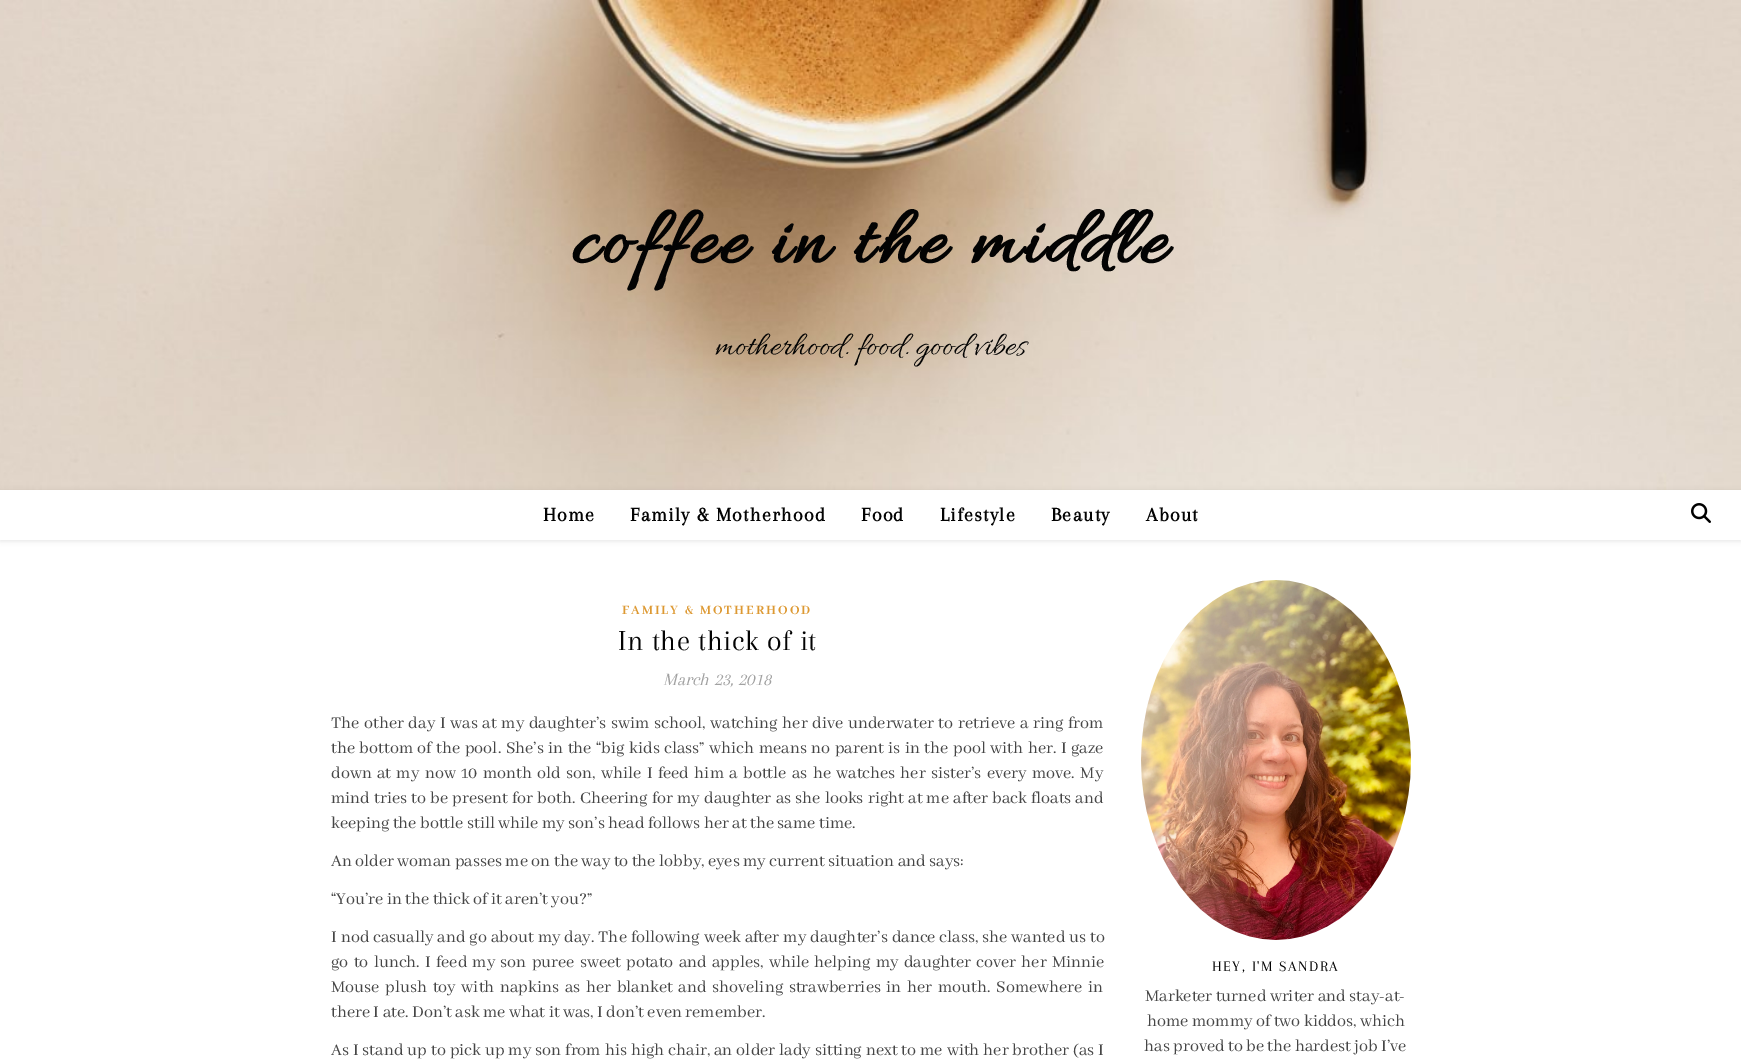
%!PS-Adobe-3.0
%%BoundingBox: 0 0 1741 1060
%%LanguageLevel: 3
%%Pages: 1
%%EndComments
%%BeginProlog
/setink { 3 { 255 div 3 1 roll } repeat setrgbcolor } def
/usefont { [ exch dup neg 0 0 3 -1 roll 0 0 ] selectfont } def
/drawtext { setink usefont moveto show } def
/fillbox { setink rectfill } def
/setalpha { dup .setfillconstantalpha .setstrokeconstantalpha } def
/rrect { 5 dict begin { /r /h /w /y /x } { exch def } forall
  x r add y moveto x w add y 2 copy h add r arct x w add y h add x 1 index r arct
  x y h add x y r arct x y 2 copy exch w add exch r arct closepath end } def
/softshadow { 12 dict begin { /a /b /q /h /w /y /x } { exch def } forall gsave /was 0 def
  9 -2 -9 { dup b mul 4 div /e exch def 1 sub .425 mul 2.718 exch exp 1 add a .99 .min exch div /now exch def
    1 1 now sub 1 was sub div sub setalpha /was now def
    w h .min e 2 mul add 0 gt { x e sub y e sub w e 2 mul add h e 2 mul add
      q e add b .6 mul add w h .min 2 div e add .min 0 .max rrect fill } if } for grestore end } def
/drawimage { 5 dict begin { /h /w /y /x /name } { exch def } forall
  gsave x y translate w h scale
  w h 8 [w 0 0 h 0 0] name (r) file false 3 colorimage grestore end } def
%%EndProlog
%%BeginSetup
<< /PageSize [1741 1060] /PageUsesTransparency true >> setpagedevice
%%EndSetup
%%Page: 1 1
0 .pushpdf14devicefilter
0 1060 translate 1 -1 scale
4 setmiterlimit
0 0 1741 1060 255 255 255 fillbox
(assets/img1.rgb) 0 0 1741 490 drawimage
/Allura-Bold 84 usefont
3 3 3 setink
571 262 moveto 3.6 0 (coffee in the middle) ashow
(motherhood. food. good vibes) 715 354 /Allura-Regular 34 3 3 3 drawtext
gsave
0 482 moveto 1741 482 lineto 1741 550 lineto 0 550 lineto closepath 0 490 moveto 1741 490 lineto 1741 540 lineto 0 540 lineto closepath eoclip newpath
0 0 0 setink
0 491 1741 50 0 2.5 0.1 softshadow
grestore
/Arapey-Bold 20 usefont
543 521 moveto 1.25 0 (Home) ashow
630 521 moveto 1.25 0 (Family & Motherhood) ashow
861 521 moveto 1.25 0 (Food) ashow
940 521 moveto 1.25 0 (Lifestyle) ashow
1051 521 moveto 1.25 0 (Beauty) ashow
1146 521 moveto 1.25 0 (About) ashow
(assets/img2.rgb) 1691 503 20 20 drawimage
/AbhayaLibre-Bold 14 usefont
221 153 51 setink
622 614 moveto 2 0 (FAMILY & MOTHERHOOD) ashow
/Arapey-Regular 30 usefont
3 3 3 setink
618 650 moveto 0.5 0 (In the thick of it) ashow
(March 23, 2018) 663 685 /Arapey-Italic 18 161 161 161 drawtext
/AbhayaLibre-Regular 18 usefont
70 70 70 setink
331 728 moveto 1.25 0 32 (The other day I was at my daughter’s swim school, watching her dive underwater to retrieve a ring from) widthshow
331 753 moveto 1.1 0 32 (the bottom of the pool. She’s in the “big kids class” which means no parent is in the pool with her. I gaze) widthshow
331 778 moveto 1.9 0 32 (down at my now 10 month old son, while I feed him a bottle as he watches her sister’s every move. My) widthshow
331 803 moveto 0.75 0 32 (mind tries to be present for both. Cheering for my daughter as she looks right at me after back floats and) widthshow
(keeping the bottle still while my son’s head follows her at the same time.) 331 828 /AbhayaLibre-Regular 18 70 70 70 drawtext
(An older woman passes me on the way to the lobby, eyes my current situation and says:) 331 866 /AbhayaLibre-Regular 18 70 70 70 drawtext
(“You’re in the thick of it aren’t you?”) 331 904 /AbhayaLibre-Regular 18 70 70 70 drawtext
331 942 moveto 0.5 0 32 (I nod casually and go about my day. The following week after my daughter’s dance class, she wanted us to) widthshow
331 967 moveto 1.75 0 32 (go to lunch. I feed my son puree sweet potato and apples, while helping my daughter cover her Minnie) widthshow
331 992 moveto 2.25 0 32 (Mouse plush toy with napkins as her blanket and shoveling strawberries in her mouth. Somewhere in) widthshow
(there I ate. Don’t ask me what it was, I don’t even remember.) 331 1017 /AbhayaLibre-Regular 18 70 70 70 drawtext
331 1055 moveto 0.55 0 32 (As I stand up to pick up my son from his high chair, an older lady sitting next to me with her brother \(as I) widthshow
(assets/img3.rgb) 1141 580 270 360 drawimage
/Arapey-Regular 15 usefont
3 3 3 setink
1212 971 moveto 1.5 0 (HEY, I'M SANDRA) ashow
(Marketer turned writer and stay-at-) 1145 1001 /AbhayaLibre-Regular 18 70 70 70 drawtext
(home mommy of two kiddos, which) 1147 1026 /AbhayaLibre-Regular 18 70 70 70 drawtext
(has proved to be the hardest job I’ve) 1144 1051 /AbhayaLibre-Regular 18 70 70 70 drawtext
.poppdf14devicefilter showpage
%%EOF
